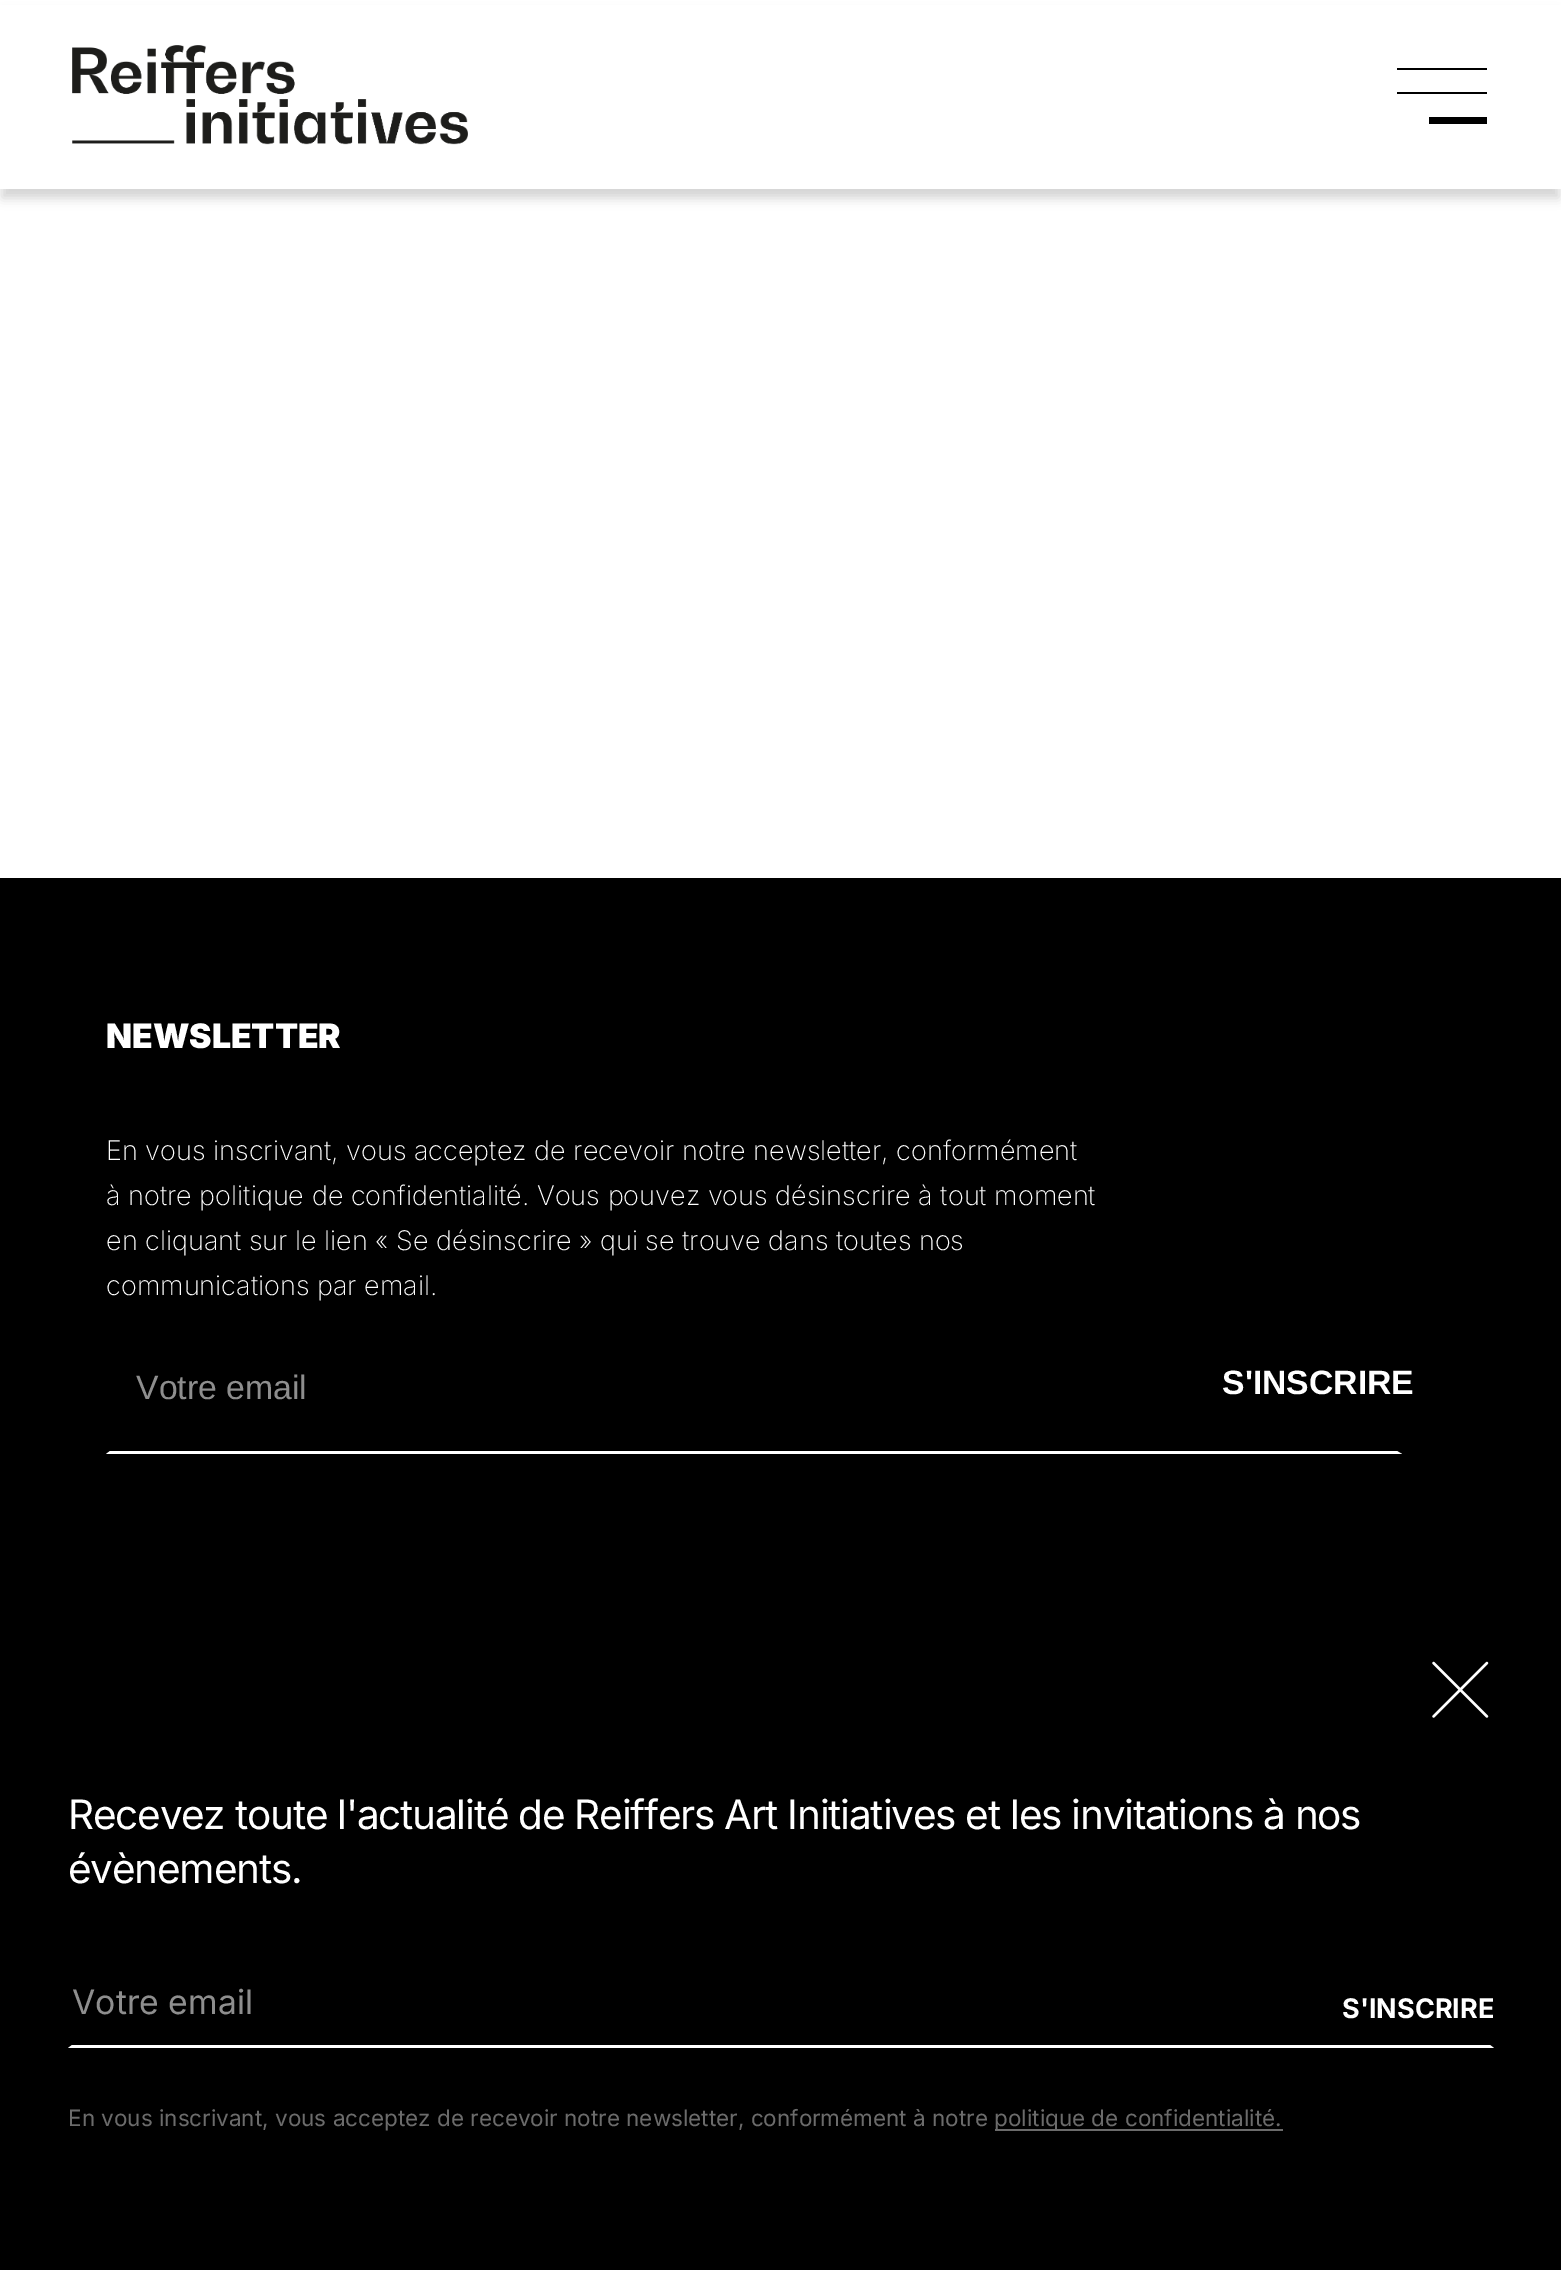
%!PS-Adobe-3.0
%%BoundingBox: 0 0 1561 2270
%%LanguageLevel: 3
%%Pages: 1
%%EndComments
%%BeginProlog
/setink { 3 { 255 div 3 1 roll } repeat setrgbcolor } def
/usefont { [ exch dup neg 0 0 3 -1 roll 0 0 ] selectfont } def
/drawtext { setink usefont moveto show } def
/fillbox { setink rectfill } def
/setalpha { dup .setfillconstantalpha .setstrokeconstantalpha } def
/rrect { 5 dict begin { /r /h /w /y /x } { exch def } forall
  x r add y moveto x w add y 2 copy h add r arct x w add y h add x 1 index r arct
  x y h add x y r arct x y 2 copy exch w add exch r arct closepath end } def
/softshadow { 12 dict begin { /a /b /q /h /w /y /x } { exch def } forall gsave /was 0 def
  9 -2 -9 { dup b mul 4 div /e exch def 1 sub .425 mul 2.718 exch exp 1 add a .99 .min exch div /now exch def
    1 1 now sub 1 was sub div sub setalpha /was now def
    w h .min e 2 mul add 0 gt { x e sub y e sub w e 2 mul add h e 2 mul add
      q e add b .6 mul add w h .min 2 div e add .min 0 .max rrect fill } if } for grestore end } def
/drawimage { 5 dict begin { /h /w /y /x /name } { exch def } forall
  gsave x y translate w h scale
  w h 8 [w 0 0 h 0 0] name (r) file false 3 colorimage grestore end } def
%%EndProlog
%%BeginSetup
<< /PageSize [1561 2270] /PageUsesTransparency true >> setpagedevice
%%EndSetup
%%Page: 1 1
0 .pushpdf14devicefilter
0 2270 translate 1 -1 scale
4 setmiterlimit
0 0 1561 2270 255 255 255 fillbox
0 0 0 setink
2 14 1557 184 0 5.5 0.17 softshadow
0 5 1561 184 255 255 255 fillbox
(assets/img1.rgb) 72 45 396 100 drawimage
1397 68 90 2 0 0 0 fillbox
1397 92 90 2 0 0 0 fillbox
1429 117 58 7 0 0 0 fillbox
0 878 1561 1392 0 0 0 fillbox
(NEWSLETTER) 106 1048 /Inter-Black 33.75 255 255 255 drawtext
(En vous inscrivant, vous acceptez de recevoir notre newsletter, conformément) 106 1160 /Inter-ExtraLight 27 255 255 255 drawtext
(à notre politique de confidentialité. Vous pouvez vous désinscrire à tout moment) 106 1205 /Inter-ExtraLight 27 255 255 255 drawtext
(en cliquant sur le lien « Se désinscrire » qui se trouve dans toutes nos) 106 1250 /Inter-ExtraLight 27 255 255 255 drawtext
(communications par email.) 106 1295 /Inter-ExtraLight 27 255 255 255 drawtext
1402 1454 moveto 106 1454 lineto 110 1451 lineto 1397 1451 lineto closepath fill
(Votre email) 136 1399 /LiberationSans-Regular 33.75 142 142 142 drawtext
(S'INSCRIRE) 1222 1394 /LiberationSans-Bold 33.75 255 255 255 drawtext
(assets/img2.rgb) 1432 1661 57 57 drawimage
/Inter-Regular 40.5 usefont
68 1829 moveto -1.22 0 (Recevez toute l'actualité de Reiffers Art Initiatives et les invitations à nos) ashow
68 1883 moveto -1.22 0 (évènements.) ashow
1494 2048 moveto 68 2048 lineto 72 2045 lineto 1490 2045 lineto closepath fill
(Votre email) 72 2014 /Inter-Regular 33.75 142 142 142 drawtext
(S'INSCRIRE) 1342 2018 /Inter-Bold 27 255 255 255 drawtext
(En vous inscrivant, vous acceptez de recevoir notre newsletter, conformément à notre) 68 2126 /Inter-Regular 22.5 107 107 107 drawtext
995 2129 288 2 107 107 107 fillbox
(politique de confidentialité.) 994 2126 /Inter-Regular 22.5 107 107 107 drawtext
.poppdf14devicefilter showpage
%%EOF
